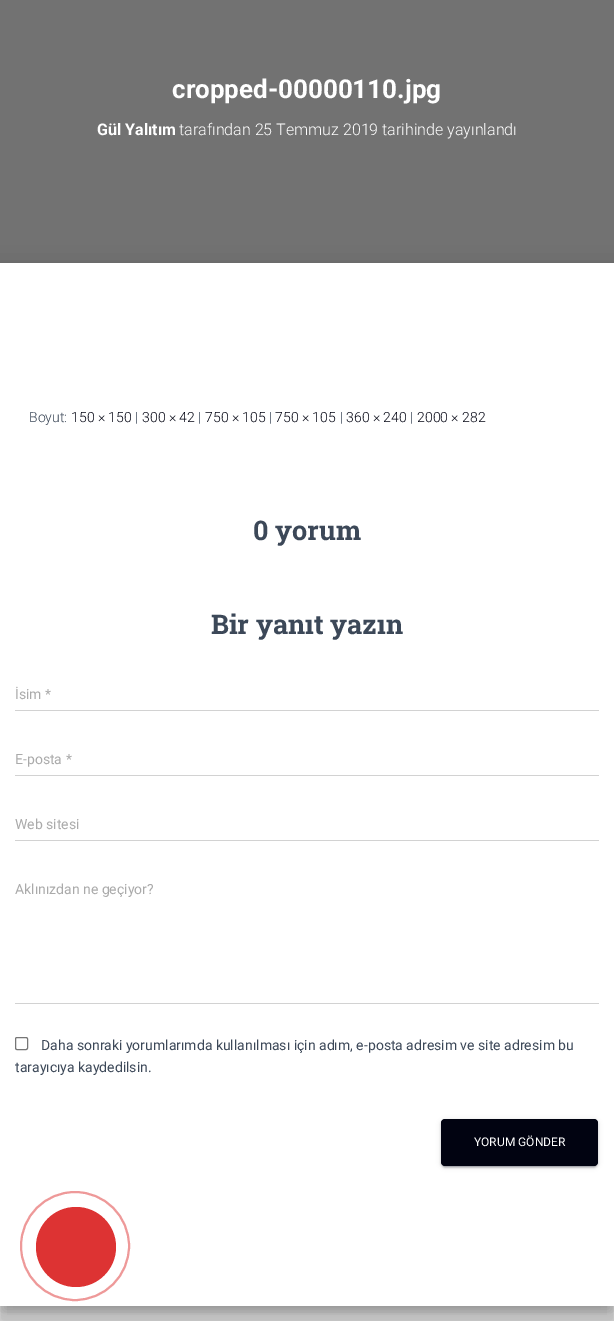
%!PS-Adobe-3.0
%%BoundingBox: 0 0 614 1321
%%LanguageLevel: 3
%%Pages: 1
%%EndComments
%%BeginProlog
/setink { 3 { 255 div 3 1 roll } repeat setrgbcolor } def
/usefont { [ exch dup neg 0 0 3 -1 roll 0 0 ] selectfont } def
/drawtext { setink usefont moveto show } def
/fillbox { setink rectfill } def
/setalpha { dup .setfillconstantalpha .setstrokeconstantalpha } def
/disc { newpath 0 360 arc closepath } def
/rrect { 5 dict begin { /r /h /w /y /x } { exch def } forall
  x r add y moveto x w add y 2 copy h add r arct x w add y h add x 1 index r arct
  x y h add x y r arct x y 2 copy exch w add exch r arct closepath end } def
/softshadow { 12 dict begin { /a /b /q /h /w /y /x } { exch def } forall gsave /was 0 def
  9 -2 -9 { dup b mul 4 div /e exch def 1 sub .425 mul 2.718 exch exp 1 add a .99 .min exch div /now exch def
    1 1 now sub 1 was sub div sub setalpha /was now def
    w h .min e 2 mul add 0 gt { x e sub y e sub w e 2 mul add h e 2 mul add
      q e add b .6 mul add w h .min 2 div e add .min 0 .max rrect fill } if } for grestore end } def
%%EndProlog
%%BeginSetup
<< /PageSize [614 1321] /PageUsesTransparency true >> setpagedevice
%%EndSetup
%%Page: 1 1
0 .pushpdf14devicefilter
0 1321 translate 1 -1 scale
4 setmiterlimit
0 0 614 1321 229 229 229 fillbox
0 0 614 263 114 114 114 fillbox
(cropped-00000110.jpg) 172 98 /Roboto-Bold 26 255 255 255 drawtext
(Gül Yalıtım) 97 135 /Roboto-Bold 16 255 255 255 drawtext
(tarafından 25 Temmuz 2019 tarihinde yayınlandı) 179 135 /Roboto-Light 16 255 255 255 drawtext
0 0 0 setink
5 276 604 1033 0 5 0.2 softshadow
-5 264 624 1053 0 15 0.12 softshadow
-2 277 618 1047 0 12 0.14 softshadow
0 263 614 1043 255 255 255 fillbox
(Boyut:) 29 422 /Roboto-Light 14 60 72 88 drawtext
(150 × 150) 71 422 /Roboto-Light 14 1 3 17 drawtext
(|) 135 422 /Roboto-Light 14 60 72 88 drawtext
(300 × 42) 142 422 /Roboto-Light 14 1 3 17 drawtext
(|) 198 422 /Roboto-Light 14 60 72 88 drawtext
(750 × 105) 205 422 /Roboto-Light 14 1 3 17 drawtext
(|) 269 422 /Roboto-Light 14 60 72 88 drawtext
(750 × 105) 275 422 /Roboto-Light 14 1 3 17 drawtext
(|) 340 422 /Roboto-Light 14 60 72 88 drawtext
(360 × 240) 346 422 /Roboto-Light 14 1 3 17 drawtext
(|) 410 422 /Roboto-Light 14 60 72 88 drawtext
(2000 × 282) 417 422 /Roboto-Light 14 1 3 17 drawtext
(0 yorum) 253 540 /RobotoSlab-Bold 27 60 72 88 drawtext
(Bir yanıt yazın) 211 634 /RobotoSlab-Bold 27 60 72 88 drawtext
(İsim *) 15 699 /Roboto-Regular 14 170 170 170 drawtext
15 710 584 1 210 210 210 fillbox
(E-posta *) 15 764 /Roboto-Regular 14 170 170 170 drawtext
15 775 584 1 210 210 210 fillbox
(Web sitesi) 15 829 /Roboto-Regular 14 170 170 170 drawtext
15 840 584 1 210 210 210 fillbox
(Aklınızdan ne geçiyor?) 15 894 /Roboto-Regular 14 170 170 170 drawtext
15 1003 584 1 210 210 210 fillbox
118 118 118 setink
15.5 1037.5 12 12 1.5 rrect stroke
(Daha sonraki yorumlarımda kullanılması için adım, e-posta adresim ve site adresim bu) 41 1050 /Roboto-Regular 14 60 72 88 drawtext
(tarayıcıya kaydedilsin.) 15 1072 /Roboto-Regular 14 60 72 88 drawtext
1 3 17 setink
441 1120 157 47 4 2.5 0.12 softshadow
443 1124 153 43 2 0.5 0.2 softshadow
441 1121 157 47 4 1 0.14 softshadow
441 1119 157 47 4 rrect fill
(YORUM GÖNDER) 474 1146 /Roboto-Regular 12 255 255 255 drawtext
238 153 153 setink
2 setlinewidth
75 1246 54 disc stroke
221 51 51 setink
76 1247 40 disc fill
.poppdf14devicefilter showpage
%%EOF
